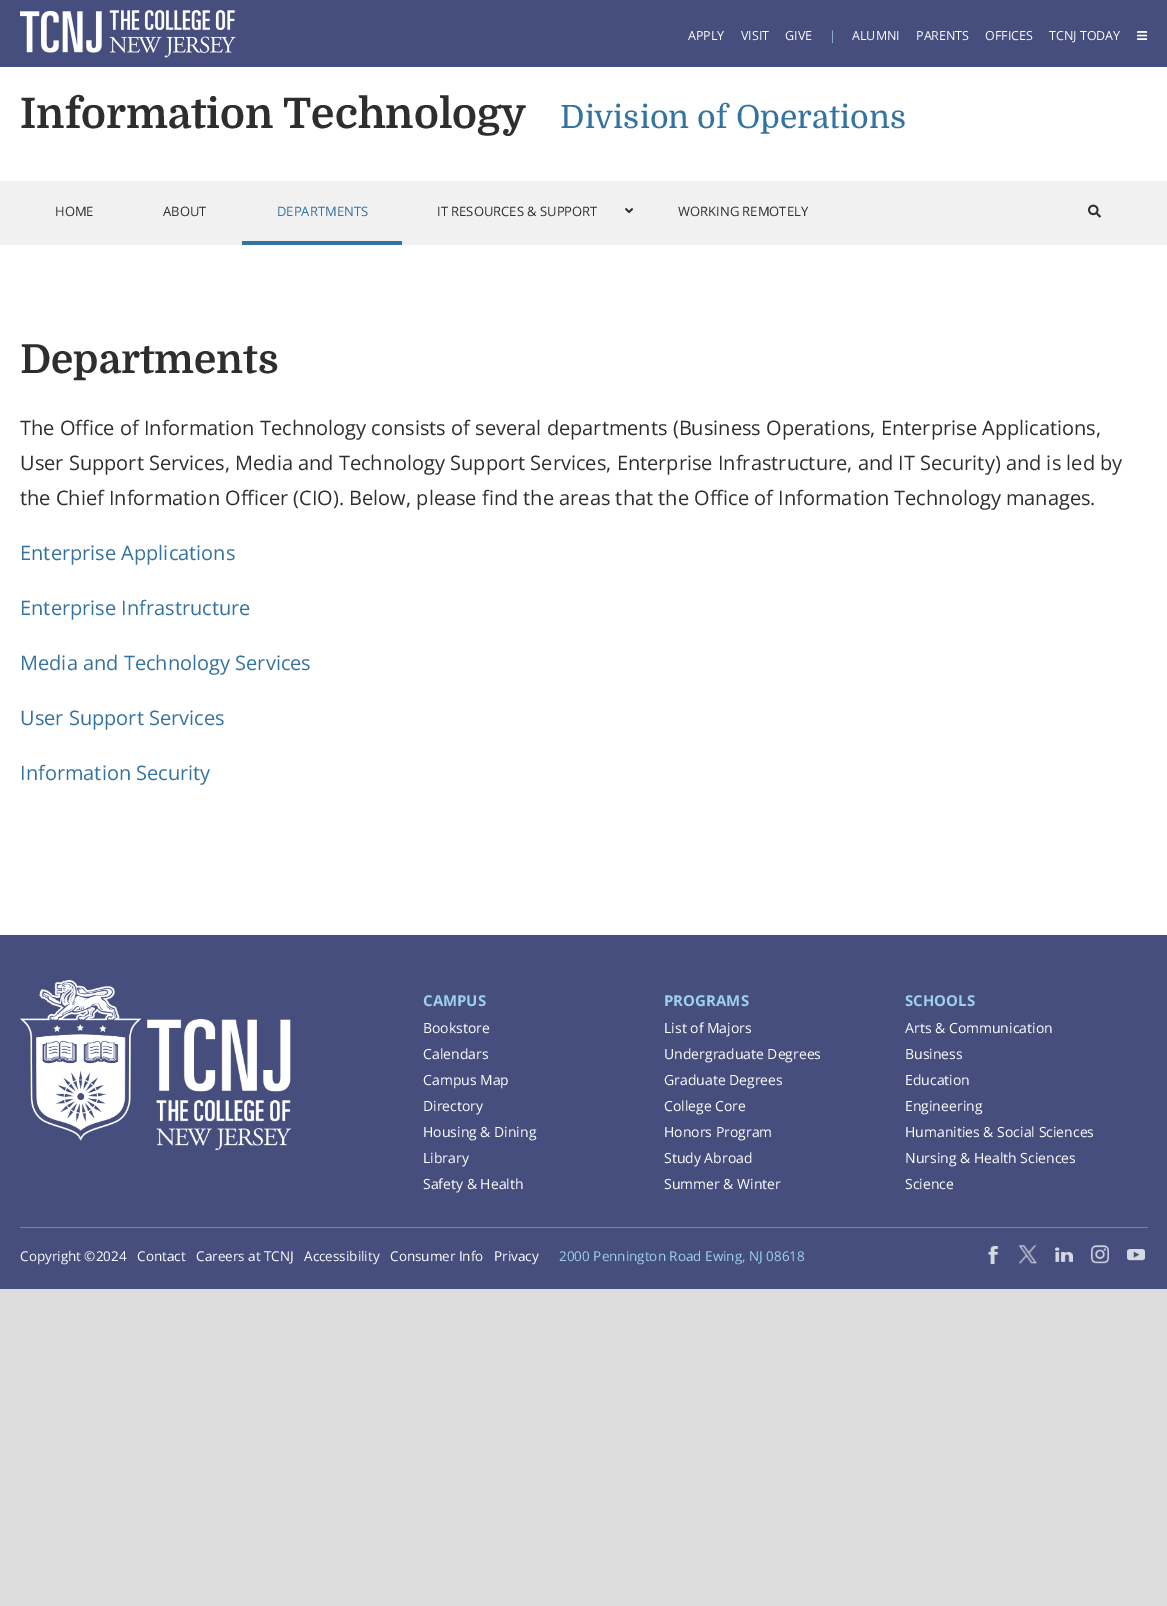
%!PS-Adobe-3.0
%%BoundingBox: 0 0 1167 1606
%%LanguageLevel: 3
%%Pages: 1
%%EndComments
%%BeginProlog
/setink { 3 { 255 div 3 1 roll } repeat setrgbcolor } def
/usefont { [ exch dup neg 0 0 3 -1 roll 0 0 ] selectfont } def
/drawtext { setink usefont moveto show } def
/fillbox { setink rectfill } def
/drawimage { 5 dict begin { /h /w /y /x /name } { exch def } forall
  gsave x y translate w h scale
  w h 8 [w 0 0 h 0 0] name (r) file false 3 colorimage grestore end } def
%%EndProlog
%%BeginSetup
<< /PageSize [1167 1606] >> setpagedevice
%%EndSetup
%%Page: 1 1
0 1606 translate 1 -1 scale
4 setmiterlimit
0 0 1167 1606 221 221 221 fillbox
0 67 1167 868 255 255 255 fillbox
0 0 1167 67 70 78 125 fillbox
(assets/img1.rgb) 20 10 216 48 drawimage
(APPLY) 688 40 /OpenSans-Regular 12.5 255 255 255 drawtext
(VISIT) 741 40 /OpenSans-Regular 12.5 255 255 255 drawtext
(GIVE) 785 40 /OpenSans-Regular 12.5 255 255 255 drawtext
(|) 829 40 /OpenSans-Regular 12.5 156 207 240 drawtext
(ALUMNI) 852 40 /OpenSans-Regular 12.5 255 255 255 drawtext
(PARENTS) 916 40 /OpenSans-Regular 12.5 255 255 255 drawtext
(OFFICES) 985 40 /OpenSans-Regular 12.5 255 255 255 drawtext
(TCNJ TODAY) 1049 40 /OpenSans-Regular 12.5 255 255 255 drawtext
(assets/img2.rgb) 1137 31 10 9 drawimage
(Information Technology) 20 128 /Domine-Bold 42 46 46 46 drawtext
(Division of Operations) 560 128 /Domine-Regular 32 51 115 159 drawtext
0 181 1167 64 241 241 241 fillbox
(HOME) 55 216 /OpenSans-Regular 13 46 46 46 drawtext
(ABOUT) 163 216 /OpenSans-Regular 13 46 46 46 drawtext
242 241 160 4 51 115 159 fillbox
(DEPARTMENTS) 277 216 /OpenSans-Regular 13 51 115 159 drawtext
(IT RESOURCES & SUPPORT) 437 216 /OpenSans-Regular 13 46 46 46 drawtext
(assets/img3.rgb) 625 208 9 6 drawimage
(WORKING REMOTELY) 678 216 /OpenSans-Regular 13 46 46 46 drawtext
(assets/img4.rgb) 1088 204 13 14 drawimage
(Departments) 20 373 /Domine-Bold 40 46 46 46 drawtext
gsave
20 335 1128 485 rectclip
(The Office of Information Technology consists of several departments \(Business Operations, Enterprise Applications,) 20 435 /OpenSans-Regular 20 46 46 46 drawtext
grestore
(User Support Services, Media and Technology Support Services, Enterprise Infrastructure, and IT Security\) and is led by) 20 470 /OpenSans-Regular 20 46 46 46 drawtext
(the Chief Information Officer \(CIO\). Below, please find the areas that the Office of Information Technology manages.) 20 505 /OpenSans-Regular 20 46 46 46 drawtext
(Enterprise Applications) 20 560 /OpenSans-Regular 20 51 115 159 drawtext
(Enterprise Infrastructure) 20 615 /OpenSans-Regular 20 51 115 159 drawtext
(Media and Technology Services) 20 670 /OpenSans-Regular 20 51 115 159 drawtext
(User Support Services) 20 725 /OpenSans-Regular 20 51 115 159 drawtext
(Information Security) 20 780 /OpenSans-Regular 20 51 115 159 drawtext
0 935 1167 354 70 78 125 fillbox
(assets/img5.rgb) 20 980 271 170 drawimage
(CAMPUS) 423 1006 /OpenSans-Bold 15 156 207 240 drawtext
(Bookstore) 423 1033 /OpenSans-Regular 14 255 255 255 drawtext
(Calendars) 423 1059 /OpenSans-Regular 14 255 255 255 drawtext
(Campus Map) 423 1085 /OpenSans-Regular 14 255 255 255 drawtext
(Directory) 423 1111 /OpenSans-Regular 14 255 255 255 drawtext
(Housing & Dining) 423 1137 /OpenSans-Regular 14 255 255 255 drawtext
(Library) 423 1163 /OpenSans-Regular 14 255 255 255 drawtext
(Safety & Health) 423 1189 /OpenSans-Regular 14 255 255 255 drawtext
(PROGRAMS) 664 1006 /OpenSans-Bold 15 156 207 240 drawtext
(List of Majors) 664 1033 /OpenSans-Regular 14 255 255 255 drawtext
(Undergraduate Degrees) 664 1059 /OpenSans-Regular 14 255 255 255 drawtext
(Graduate Degrees) 664 1085 /OpenSans-Regular 14 255 255 255 drawtext
(College Core) 664 1111 /OpenSans-Regular 14 255 255 255 drawtext
(Honors Program) 664 1137 /OpenSans-Regular 14 255 255 255 drawtext
(Study Abroad) 664 1163 /OpenSans-Regular 14 255 255 255 drawtext
(Summer & Winter) 664 1189 /OpenSans-Regular 14 255 255 255 drawtext
(SCHOOLS) 905 1006 /OpenSans-Bold 15 156 207 240 drawtext
(Arts & Communication) 905 1033 /OpenSans-Regular 14 255 255 255 drawtext
(Business) 905 1059 /OpenSans-Regular 14 255 255 255 drawtext
(Education) 905 1085 /OpenSans-Regular 14 255 255 255 drawtext
(Engineering) 905 1111 /OpenSans-Regular 14 255 255 255 drawtext
(Humanities & Social Sciences) 905 1137 /OpenSans-Regular 14 255 255 255 drawtext
(Nursing & Health Sciences) 905 1163 /OpenSans-Regular 14 255 255 255 drawtext
(Science) 905 1189 /OpenSans-Regular 14 255 255 255 drawtext
20 1227 1128 1 118 132 163 fillbox
(Copyright ©2024) 20 1261 /OpenSans-Regular 13.5 255 255 255 drawtext
(Contact) 137 1261 /OpenSans-Regular 13.5 255 255 255 drawtext
(Careers at TCNJ) 196 1261 /OpenSans-Regular 13.5 255 255 255 drawtext
(Accessibility) 304 1261 /OpenSans-Regular 13.5 255 255 255 drawtext
(Consumer Info) 390 1261 /OpenSans-Regular 13.5 255 255 255 drawtext
(Privacy) 494 1261 /OpenSans-Regular 13.5 255 255 255 drawtext
(2000 Pennington Road Ewing, NJ 08618) 559 1261 /OpenSans-Regular 13.5 156 207 240 drawtext
(assets/img6.rgb) 988 1246 11 18 drawimage
(assets/img7.rgb) 1018 1244 19 20 drawimage
(assets/img8.rgb) 1055 1247 18 15 drawimage
(assets/img9.rgb) 1091 1245 18 19 drawimage
(assets/img10.rgb) 1127 1249 18 12 drawimage
showpage
%%EOF
